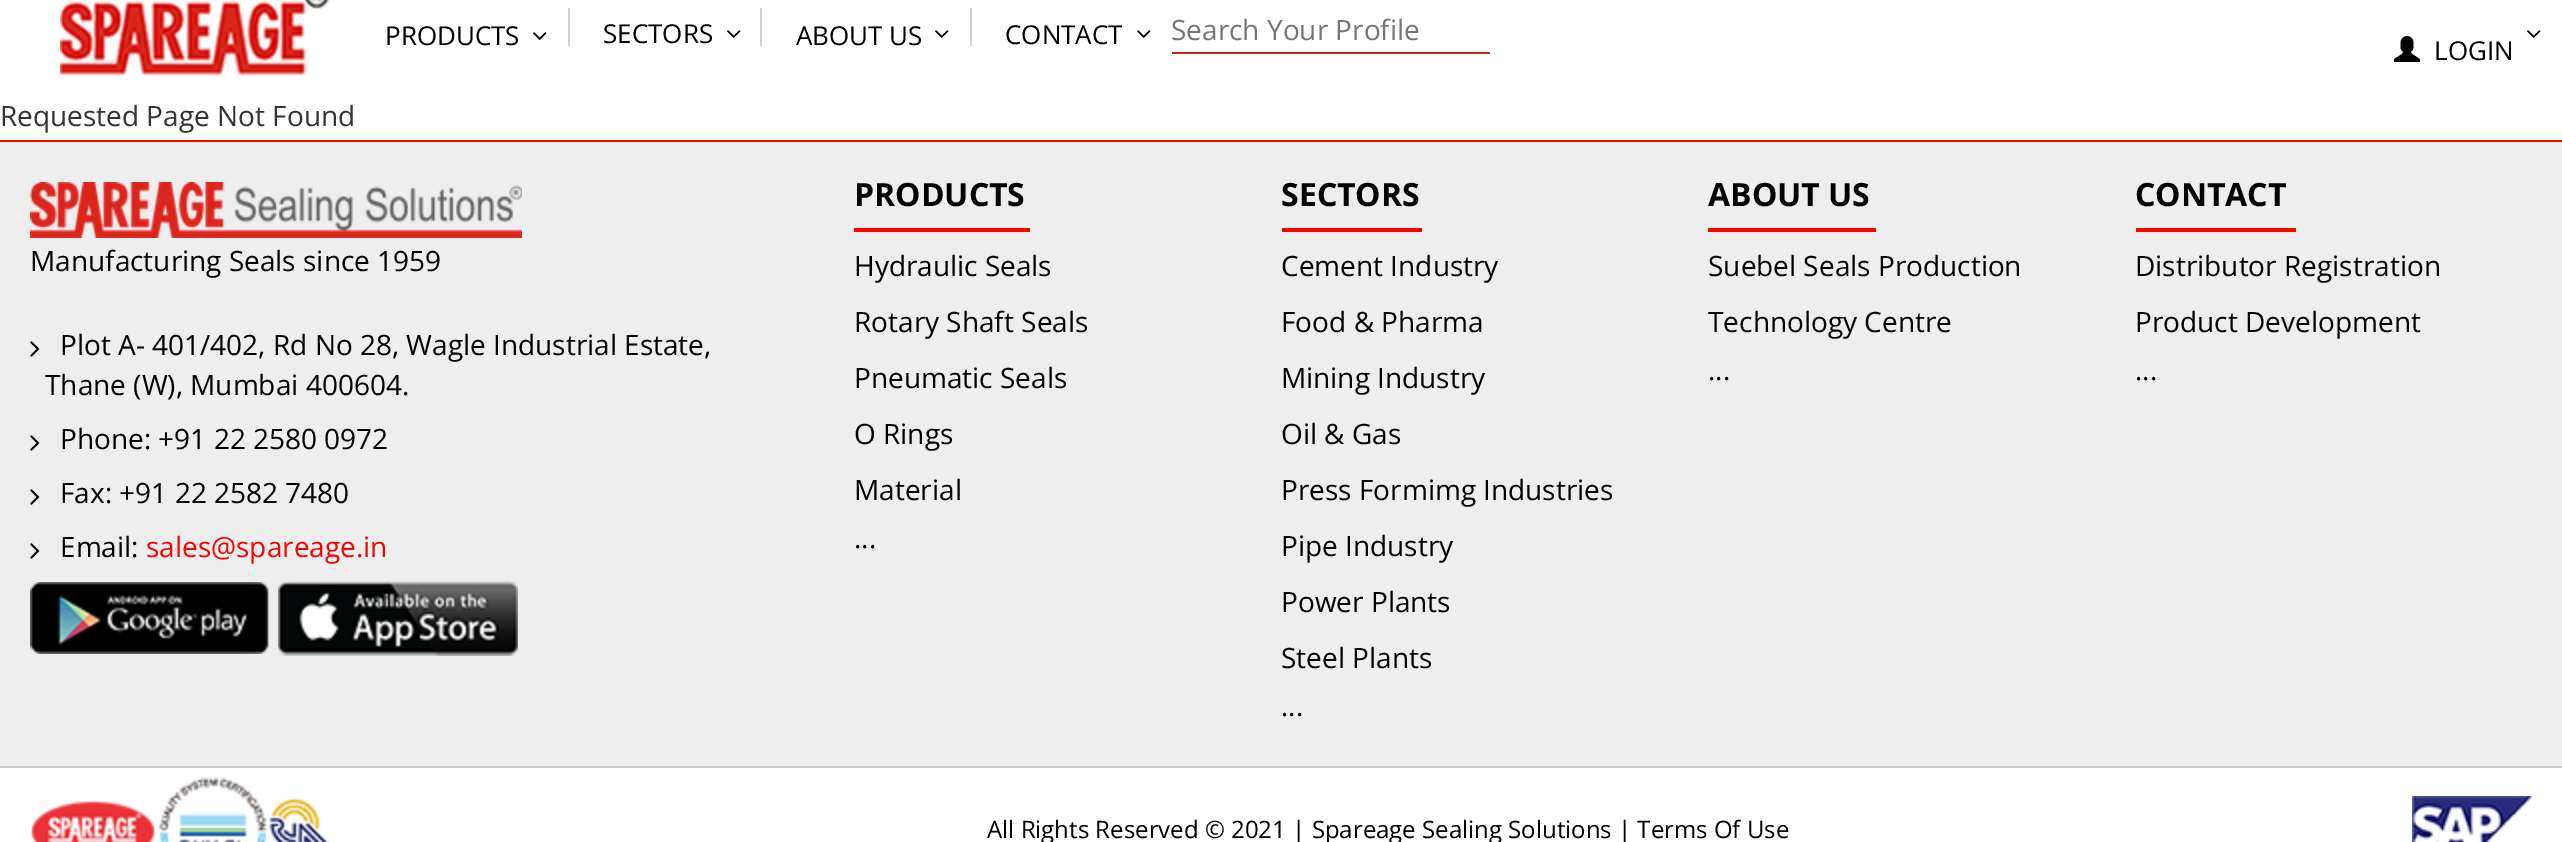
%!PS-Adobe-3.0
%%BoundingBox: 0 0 2562 842
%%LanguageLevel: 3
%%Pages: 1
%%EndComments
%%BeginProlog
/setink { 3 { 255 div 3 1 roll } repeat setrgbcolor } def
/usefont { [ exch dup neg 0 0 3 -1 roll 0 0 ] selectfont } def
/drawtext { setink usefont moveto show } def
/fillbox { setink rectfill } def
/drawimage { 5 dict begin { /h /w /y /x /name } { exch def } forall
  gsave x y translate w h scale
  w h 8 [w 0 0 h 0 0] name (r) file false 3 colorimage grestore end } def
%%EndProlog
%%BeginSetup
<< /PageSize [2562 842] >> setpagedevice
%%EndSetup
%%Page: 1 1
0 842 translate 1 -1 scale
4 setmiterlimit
0 0 2562 842 255 255 255 fillbox
(assets/img1.rgb) 60 0 270 77 drawimage
(PRODUCTS) 385 45 /OpenSans-Regular 26 0 0 0 drawtext
(assets/img2.rgb) 533 32 14 8 drawimage
568 8 2 38 208 208 208 fillbox
(SECTORS) 603 43 /OpenSans-Regular 26 0 0 0 drawtext
(assets/img2.rgb) 727 30 14 8 drawimage
760 8 2 38 208 208 208 fillbox
(ABOUT US) 796 45 /OpenSans-Regular 26 0 0 0 drawtext
(assets/img2.rgb) 935 30 14 8 drawimage
970 8 2 38 208 208 208 fillbox
(CONTACT) 1005 44 /OpenSans-Regular 26 0 0 0 drawtext
(assets/img2.rgb) 1137 30 14 8 drawimage
1172 52 318 2 214 34 24 fillbox
(Search Your Profile) 1171 40 /OpenSans-Regular 28 117 117 117 drawtext
(assets/img2.rgb) 2527 30 14 8 drawimage
(assets/img3.rgb) 2394 36 26 26 drawimage
(LOGIN) 2434 60 /OpenSans-Regular 26 0 0 0 drawtext
(Requested Page Not Found) 0 126 /OpenSans-Regular 28 51 51 51 drawtext
0 142 2562 624 238 238 238 fillbox
0 140 2562 2 255 0 0 fillbox
0 766 2562 2 204 204 204 fillbox
(assets/img4.rgb) 30 182 492 56 drawimage
(Manufacturing Seals since 1959) 30 271 /OpenSans-Regular 28 0 0 0 drawtext
(assets/img5.rgb) 30 341 10 16 drawimage
(Plot A- 401/402, Rd No 28, Wagle Industrial Estate,) 60 355 /OpenSans-Regular 28 0 0 0 drawtext
(Thane \(W\), Mumbai 400604.) 45 395 /OpenSans-Regular 28 0 0 0 drawtext
(assets/img5.rgb) 30 435 10 16 drawimage
(Phone: +91 22 2580 0972) 60 449 /OpenSans-Regular 28 0 0 0 drawtext
(assets/img5.rgb) 30 489 10 16 drawimage
(Fax: +91 22 2582 7480) 60 503 /OpenSans-Regular 28 0 0 0 drawtext
(assets/img5.rgb) 30 543 10 16 drawimage
(Email:) 60 557 /OpenSans-Regular 28 0 0 0 drawtext
(sales@spareage.in) 146 557 /OpenSans-Regular 28 255 0 0 drawtext
(assets/img6.rgb) 30 582 239 72 drawimage
(assets/img7.rgb) 278 581 240 75 drawimage
854 228 176 4 255 0 0 fillbox
(PRODUCTS) 854 206 /OpenSans-Bold 32 0 0 0 drawtext
(Hydraulic Seals) 854 276 /OpenSans-Regular 28 0 0 0 drawtext
(Rotary Shaft Seals) 854 332 /OpenSans-Regular 28 0 0 0 drawtext
(Pneumatic Seals) 854 388 /OpenSans-Regular 28 0 0 0 drawtext
(O Rings) 854 444 /OpenSans-Regular 28 0 0 0 drawtext
(Material) 854 500 /OpenSans-Regular 28 0 0 0 drawtext
(...) 854 548 /OpenSans-Regular 28 0 0 0 drawtext
1282 228 140 4 255 0 0 fillbox
(SECTORS) 1281 206 /OpenSans-Bold 32 0 0 0 drawtext
(Cement Industry) 1281 276 /OpenSans-Regular 28 0 0 0 drawtext
(Food & Pharma) 1281 332 /OpenSans-Regular 28 0 0 0 drawtext
(Mining Industry) 1281 388 /OpenSans-Regular 28 0 0 0 drawtext
(Oil & Gas) 1281 444 /OpenSans-Regular 28 0 0 0 drawtext
(Press Formimg Industries) 1281 500 /OpenSans-Regular 28 0 0 0 drawtext
(Pipe Industry) 1281 556 /OpenSans-Regular 28 0 0 0 drawtext
(Power Plants) 1281 612 /OpenSans-Regular 28 0 0 0 drawtext
(Steel Plants) 1281 668 /OpenSans-Regular 28 0 0 0 drawtext
(...) 1281 716 /OpenSans-Regular 28 0 0 0 drawtext
1708 228 168 4 255 0 0 fillbox
(ABOUT US) 1708 206 /OpenSans-Bold 32 0 0 0 drawtext
(Suebel Seals Production) 1708 276 /OpenSans-Regular 28 0 0 0 drawtext
(Technology Centre) 1708 332 /OpenSans-Regular 28 0 0 0 drawtext
(...) 1708 380 /OpenSans-Regular 28 0 0 0 drawtext
2136 228 160 4 255 0 0 fillbox
(CONTACT) 2135 206 /OpenSans-Bold 32 0 0 0 drawtext
(Distributor Registration) 2135 276 /OpenSans-Regular 28 0 0 0 drawtext
(Product Development) 2135 332 /OpenSans-Regular 28 0 0 0 drawtext
(...) 2135 380 /OpenSans-Regular 28 0 0 0 drawtext
(assets/img8.rgb) 31 777 298 65 drawimage
(All Rights Reserved © 2021 | Spareage Sealing Solutions | Terms Of Use) 987 838 /OpenSans-Regular 24 0 0 0 drawtext
(assets/img9.rgb) 2412 796 120 46 drawimage
showpage
%%EOF
